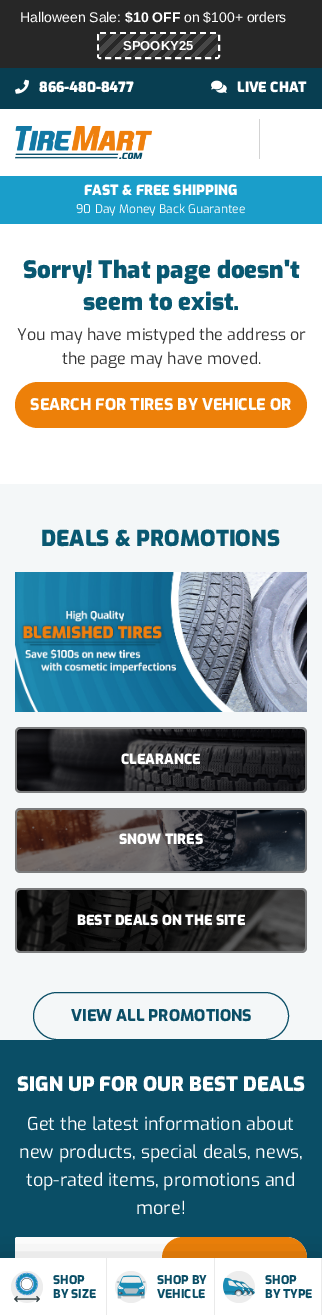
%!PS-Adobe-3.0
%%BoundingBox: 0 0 322 1315
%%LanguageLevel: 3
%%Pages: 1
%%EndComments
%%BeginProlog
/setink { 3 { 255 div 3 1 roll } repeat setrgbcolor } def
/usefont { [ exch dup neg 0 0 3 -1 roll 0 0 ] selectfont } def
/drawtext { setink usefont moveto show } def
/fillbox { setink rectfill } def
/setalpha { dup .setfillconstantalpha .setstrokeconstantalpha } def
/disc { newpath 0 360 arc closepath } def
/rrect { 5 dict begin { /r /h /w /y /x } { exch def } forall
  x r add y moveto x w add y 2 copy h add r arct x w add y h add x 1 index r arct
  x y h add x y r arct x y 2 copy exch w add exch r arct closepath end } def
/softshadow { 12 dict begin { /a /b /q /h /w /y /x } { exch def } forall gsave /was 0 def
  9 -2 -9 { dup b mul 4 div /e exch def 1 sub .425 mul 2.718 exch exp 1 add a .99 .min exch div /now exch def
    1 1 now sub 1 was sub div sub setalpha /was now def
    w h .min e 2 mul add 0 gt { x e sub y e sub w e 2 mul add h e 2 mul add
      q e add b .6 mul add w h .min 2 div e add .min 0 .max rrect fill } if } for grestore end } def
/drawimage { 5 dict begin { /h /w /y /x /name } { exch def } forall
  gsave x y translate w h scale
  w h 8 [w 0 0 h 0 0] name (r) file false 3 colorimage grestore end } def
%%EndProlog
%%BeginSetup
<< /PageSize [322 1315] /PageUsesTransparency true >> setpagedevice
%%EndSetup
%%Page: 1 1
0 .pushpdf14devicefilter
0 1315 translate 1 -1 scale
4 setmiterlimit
0 0 322 1315 255 255 255 fillbox
0 0 322 68 39 39 39 fillbox
(Halloween Sale:) 20 22 /LiberationSans-Regular 14 255 255 255 drawtext
($10 OFF) 125 22 /LiberationSans-Bold 14 255 255 255 drawtext
(on $100+ orders) 184 22 /LiberationSans-Regular 14 255 255 255 drawtext
2 setlinewidth
[6 4] 0 setdash
100 33 moveto 217 33 lineto 218 33 219 34 219 35 curveto 219 56 lineto 219 57 218 58 217 58 curveto 100 58 lineto 99 58 98 57 98 56 curveto 98 35 lineto 98 34 99 33 100 33 curveto closepath stroke
gsave 99 34 119 23 3 rrect clip newpath
<< /ShadingType 2 /ColorSpace /DeviceRGB /Coords [194 81 116 3.2] /Extend [true true] /Function << /FunctionType 3 /Domain [0 1] /Functions [<< /FunctionType 2 /Domain [0 1] /C0 [0.153 0.153 0.153] /C1 [0.153 0.153 0.153] /N 1 >> << /FunctionType 2 /Domain [0 1] /C0 [0.278 0.278 0.278] /C1 [0.278 0.278 0.278] /N 1 >> << /FunctionType 2 /Domain [0 1] /C0 [0.153 0.153 0.153] /C1 [0.153 0.153 0.153] /N 1 >> << /FunctionType 2 /Domain [0 1] /C0 [0.278 0.278 0.278] /C1 [0.278 0.278 0.278] /N 1 >> << /FunctionType 2 /Domain [0 1] /C0 [0.153 0.153 0.153] /C1 [0.153 0.153 0.153] /N 1 >> << /FunctionType 2 /Domain [0 1] /C0 [0.278 0.278 0.278] /C1 [0.278 0.278 0.278] /N 1 >> << /FunctionType 2 /Domain [0 1] /C0 [0.153 0.153 0.153] /C1 [0.153 0.153 0.153] /N 1 >> << /FunctionType 2 /Domain [0 1] /C0 [0.278 0.278 0.278] /C1 [0.278 0.278 0.278] /N 1 >> << /FunctionType 2 /Domain [0 1] /C0 [0.153 0.153 0.153] /C1 [0.153 0.153 0.153] /N 1 >> << /FunctionType 2 /Domain [0 1] /C0 [0.278 0.278 0.278] /C1 [0.278 0.278 0.278] /N 1 >> << /FunctionType 2 /Domain [0 1] /C0 [0.153 0.153 0.153] /C1 [0.153 0.153 0.153] /N 1 >> << /FunctionType 2 /Domain [0 1] /C0 [0.278 0.278 0.278] /C1 [0.278 0.278 0.278] /N 1 >> << /FunctionType 2 /Domain [0 1] /C0 [0.153 0.153 0.153] /C1 [0.153 0.153 0.153] /N 1 >> << /FunctionType 2 /Domain [0 1] /C0 [0.278 0.278 0.278] /C1 [0.278 0.278 0.278] /N 1 >> << /FunctionType 2 /Domain [0 1] /C0 [0.153 0.153 0.153] /C1 [0.153 0.153 0.153] /N 1 >> << /FunctionType 2 /Domain [0 1] /C0 [0.278 0.278 0.278] /C1 [0.278 0.278 0.278] /N 1 >> << /FunctionType 2 /Domain [0 1] /C0 [0.153 0.153 0.153] /C1 [0.153 0.153 0.153] /N 1 >> << /FunctionType 2 /Domain [0 1] /C0 [0.278 0.278 0.278] /C1 [0.278 0.278 0.278] /N 1 >> << /FunctionType 2 /Domain [0 1] /C0 [0.153 0.153 0.153] /C1 [0.153 0.153 0.153] /N 1 >> << /FunctionType 2 /Domain [0 1] /C0 [0.278 0.278 0.278] /C1 [0.278 0.278 0.278] /N 1 >> << /FunctionType 2 /Domain [0 1] /C0 [0.153 0.153 0.153] /C1 [0.153 0.153 0.153] /N 1 >> << /FunctionType 2 /Domain [0 1] /C0 [0.278 0.278 0.278] /C1 [0.278 0.278 0.278] /N 1 >>] /Bounds [0.05 0.09 0.14 0.18 0.23 0.27 0.32 0.36 0.41 0.45 0.5 0.55 0.59 0.64 0.68 0.73 0.77 0.82 0.86 0.91 0.95] /Encode [0 1 0 1 0 1 0 1 0 1 0 1 0 1 0 1 0 1 0 1 0 1 0 1 0 1 0 1 0 1 0 1 0 1 0 1 0 1 0 1 0 1 0 1] >> >> shfill grestore
(SPOOKY25) 123 50 /LiberationSans-Bold 13 255 255 255 drawtext
0 68 322 41 8 62 81 fillbox
(assets/img1.rgb) 15 79 14 15 drawimage
(866-480-8477) 39 92 /Exo-Black 14 255 255 255 drawtext
(assets/img2.rgb) 211 80 16 13 drawimage
(LIVE CHAT) 237 92 /Exo-Black 14 255 255 255 drawtext
(assets/img3.rgb) 15 126 137 33 drawimage
259 119 1 40 211 211 211 fillbox
0 176 322 48 26 158 202 fillbox
(FAST & FREE SHIPPING) 84 195 /Exo-Black 14 255 255 255 drawtext
(90 Day Money Back Guarantee) 76 213 /Exo-Regular 12 255 255 255 drawtext
(Sorry! That page doesn't) 23 278 /Exo-Black 24 9 88 113 drawtext
(seem to exist.) 83 310 /Exo-Black 24 9 88 113 drawtext
(You may have mistyped the address or) 17 340 /Exo-Regular 16 52 52 52 drawtext
(the page may have moved.) 62 364 /Exo-Regular 16 52 52 52 drawtext
237 128 9 setink
15 382 292 46 23 rrect fill
(SEARCH FOR TIRES BY VEHICLE OR) 30 410 /Exo-ExtraBold 16 255 255 255 drawtext
0 484 322 556 244 247 248 fillbox
(DEALS & PROMOTIONS) 41 546 /Exo-Black 22 9 88 113 drawtext
(assets/img4.rgb) 15 572 292 140 drawimage
(assets/img5.rgb) 17 729 288 62 drawimage
0.5 setalpha
0 0 0 setink
15 727 292 66 5 rrect fill
1 setalpha
(CLEARANCE) 121 764 /Exo-Black 14 255 255 255 drawtext
(assets/img6.rgb) 17 810 288 61 drawimage
0.5 setalpha
0 0 0 setink
15 808 292 65 5 rrect fill
1 setalpha
(SNOW TIRES) 119 844 /Exo-Black 14 255 255 255 drawtext
(assets/img7.rgb) 17 890 288 61 drawimage
0.5 setalpha
0 0 0 setink
15 888 292 65 5 rrect fill
1 setalpha
(BEST DEALS ON THE SITE) 77 925 /Exo-Black 14 255 255 255 drawtext
10 78 102 setink
1 setlinewidth
[] 0 setdash
33.5 992.5 255 47 23.5 rrect stroke
(VIEW ALL PROMOTIONS) 71 1021 /Exo-ExtraBold 16 10 78 102 drawtext
0 1040 322 218 10 78 102 fillbox
(SIGN UP FOR OUR BEST DEALS) 17 1091 /Exo-Black 20 255 255 255 drawtext
(Get the latest information about) 27 1130 /Exo-Regular 18 255 255 255 drawtext
(new products, special deals, news,) 19 1158 /Exo-Regular 18 255 255 255 drawtext
(top-rated items, promotions and) 26 1186 /Exo-Regular 18 255 255 255 drawtext
(more!) 136 1214 /Exo-Regular 18 255 255 255 drawtext
17 1237 moveto 286 1237 lineto 297.5 1237 307 1246.5 307 1258 curveto 307 1269.5 297.5 1279 286 1279 curveto 17 1279 lineto 16 1279 15 1278 15 1277 curveto 15 1239 lineto 15 1238 16 1237 17 1237 curveto closepath fill
237 128 9 setink
162 1237 145 42 21 rrect fill
0 0 0 setink
0 1270 322 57 0 15 0.5 softshadow
0 1258 321 57 255 255 255 fillbox
106 1258 1 57 234 234 234 fillbox
237 237 237 setink
27 1287 16 disc fill
(assets/img8.rgb) 14 1272 26 31 drawimage
(SHOP) 53 1284 /Exo-ExtraBold 12 10 78 102 drawtext
(BY SIZE) 53 1298 /Exo-ExtraBold 12 10 78 102 drawtext
214 1258 1 57 234 234 234 fillbox
237 237 237 setink
131 1287 16 disc fill
(assets/img9.rgb) 116 1275 30 24 drawimage
(SHOP BY) 157 1284 /Exo-ExtraBold 12 10 78 102 drawtext
(VEHICLE) 157 1298 /Exo-ExtraBold 12 10 78 102 drawtext
321 1258 1 57 234 234 234 fillbox
237 237 237 setink
239 1287 16 disc fill
(assets/img10.rgb) 223 1277 32 20 drawimage
(SHOP) 265 1284 /Exo-ExtraBold 12 10 78 102 drawtext
(BY TYPE) 265 1298 /Exo-ExtraBold 12 10 78 102 drawtext
.poppdf14devicefilter showpage
%%EOF
